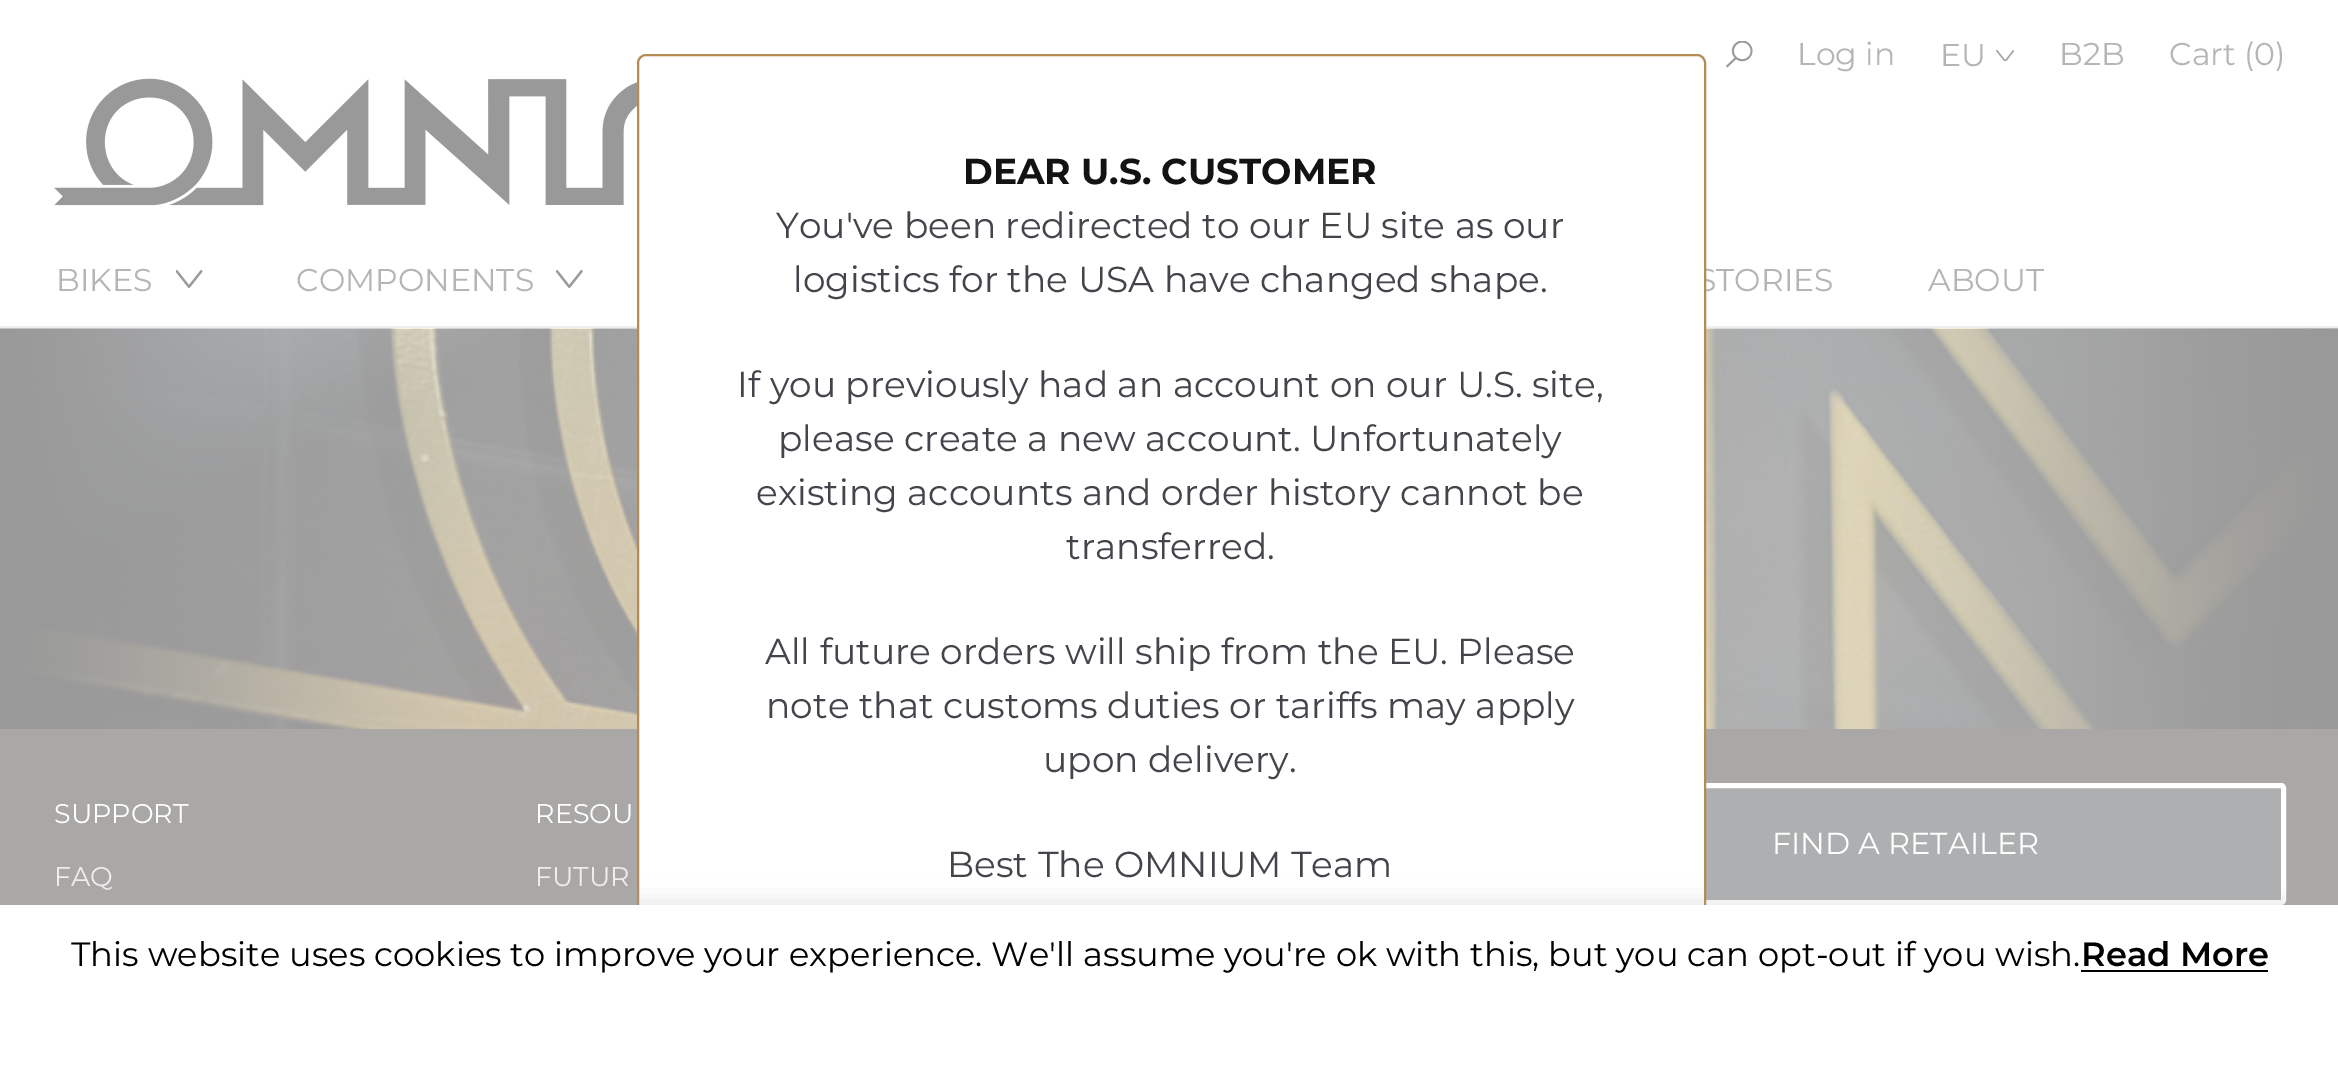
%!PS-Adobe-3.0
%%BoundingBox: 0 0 2338 1089
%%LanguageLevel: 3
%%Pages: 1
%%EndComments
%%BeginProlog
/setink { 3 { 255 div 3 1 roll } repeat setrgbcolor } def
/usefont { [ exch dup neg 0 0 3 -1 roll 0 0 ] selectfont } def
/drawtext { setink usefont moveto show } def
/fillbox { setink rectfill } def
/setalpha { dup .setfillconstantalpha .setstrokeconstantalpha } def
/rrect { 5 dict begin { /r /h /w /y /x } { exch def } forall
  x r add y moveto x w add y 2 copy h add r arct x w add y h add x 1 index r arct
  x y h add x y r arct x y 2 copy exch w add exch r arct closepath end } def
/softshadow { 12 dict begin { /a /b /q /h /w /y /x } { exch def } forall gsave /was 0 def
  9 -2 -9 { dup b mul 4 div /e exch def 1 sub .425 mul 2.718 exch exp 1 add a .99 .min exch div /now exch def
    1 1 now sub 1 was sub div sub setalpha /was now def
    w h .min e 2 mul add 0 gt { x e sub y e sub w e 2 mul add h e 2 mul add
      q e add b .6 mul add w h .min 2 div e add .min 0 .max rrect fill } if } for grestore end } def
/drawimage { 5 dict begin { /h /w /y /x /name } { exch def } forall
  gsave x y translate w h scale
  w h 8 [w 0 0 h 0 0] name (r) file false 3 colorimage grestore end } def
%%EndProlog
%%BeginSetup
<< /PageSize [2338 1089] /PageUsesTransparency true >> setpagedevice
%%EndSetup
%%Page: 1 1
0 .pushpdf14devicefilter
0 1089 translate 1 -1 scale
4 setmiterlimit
0 0 2338 1089 255 255 255 fillbox
0 326 2338 2 237 238 241 fillbox
(assets/img1.rgb) 1726 41 27 27 drawimage
(Log in) 1797 65 /Montserrat-Regular 31.5 180 181 183 drawtext
(assets/img2.rgb) 1996 50 18 11 drawimage
(EU) 1940 66 /Montserrat-Regular 31.5 180 181 183 drawtext
(B2B) 2059 65 /Montserrat-Regular 31.5 180 181 183 drawtext
(Cart \(0\)) 2169 65 /Montserrat-Regular 31.5 180 181 183 drawtext
(assets/img3.rgb) 54 78 583 128 drawimage
(BIKES) 56 291 /Montserrat-Regular 31.5 180 181 183 drawtext
(assets/img4.rgb) 176 270 27 18 drawimage
(COMPONENTS) 296 291 /Montserrat-Regular 31.5 180 181 183 drawtext
(assets/img5.rgb) 556 270 27 18 drawimage
(STORIES) 1697 291 /Montserrat-Regular 31.5 180 181 183 drawtext
(ABOUT) 1928 291 /Montserrat-Regular 31.5 180 181 183 drawtext
0 729 2338 176 169 168 167 fillbox
(assets/img6.rgb) 0 328 2338 401 drawimage
(assets/img7.rgb) 0 328 472 401 drawimage
(assets/img8.rgb) 1868 328 470 401 drawimage
(SUPPORT) 54 823 /Montserrat-Regular 27 255 255 255 drawtext
(FAQ) 54 886 /Montserrat-Regular 27 239 237 237 drawtext
(RESOU) 535 823 /Montserrat-Regular 27 255 255 255 drawtext
(FUTUR) 535 886 /Montserrat-Regular 27 239 237 237 drawtext
173 175 177 setink
1525.5 785.5 758 117 2.5 rrect gsave fill grestore
255 255 255 setink
5 setlinewidth
stroke
(FIND A RETAILER) 1772 854 /Montserrat-Regular 30.4 255 255 255 drawtext
638 55 1067 981 8 rrect gsave fill grestore
178 139 85 setink
2 setlinewidth
stroke
(DEAR U.S. CUSTOMER) 963 184 /Montserrat-Bold 36 19 19 21 drawtext
(You've been redirected to our EU site as our) 776 238 /Montserrat-Regular 36 67 69 75 drawtext
(logistics for the USA have changed shape.) 793 292 /Montserrat-Regular 36 67 69 75 drawtext
(If you previously had an account on our U.S. site,) 737 397 /Montserrat-Regular 36 67 69 75 drawtext
(please create a new account. Unfortunately) 778 451 /Montserrat-Regular 36 67 69 75 drawtext
(existing accounts and order history cannot be) 756 505 /Montserrat-Regular 36 67 69 75 drawtext
(transferred.) 1066 559 /Montserrat-Regular 36 67 69 75 drawtext
(All future orders will ship from the EU. Please) 765 664 /Montserrat-Regular 36 67 69 75 drawtext
(note that customs duties or tariffs may apply) 766 718 /Montserrat-Regular 36 67 69 75 drawtext
(upon delivery.) 1043 772 /Montserrat-Regular 36 67 69 75 drawtext
(Best The OMNIUM Team) 947 877 /Montserrat-Regular 36 67 69 75 drawtext
172 171 171 setink
0 902 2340 185 0 11 0.3 softshadow
0 905 2338 184 255 255 255 fillbox
(This website uses cookies to improve your experience. We'll assume you're ok with this, but you can opt-out if you wish.) 71 966 /Montserrat-Regular 33.75 0 0 0 drawtext
(Read More) 2081 966 /Montserrat-SemiBold 33.75 0 0 0 drawtext
2081 970 187 2 0 0 0 fillbox
.poppdf14devicefilter showpage
%%EOF
